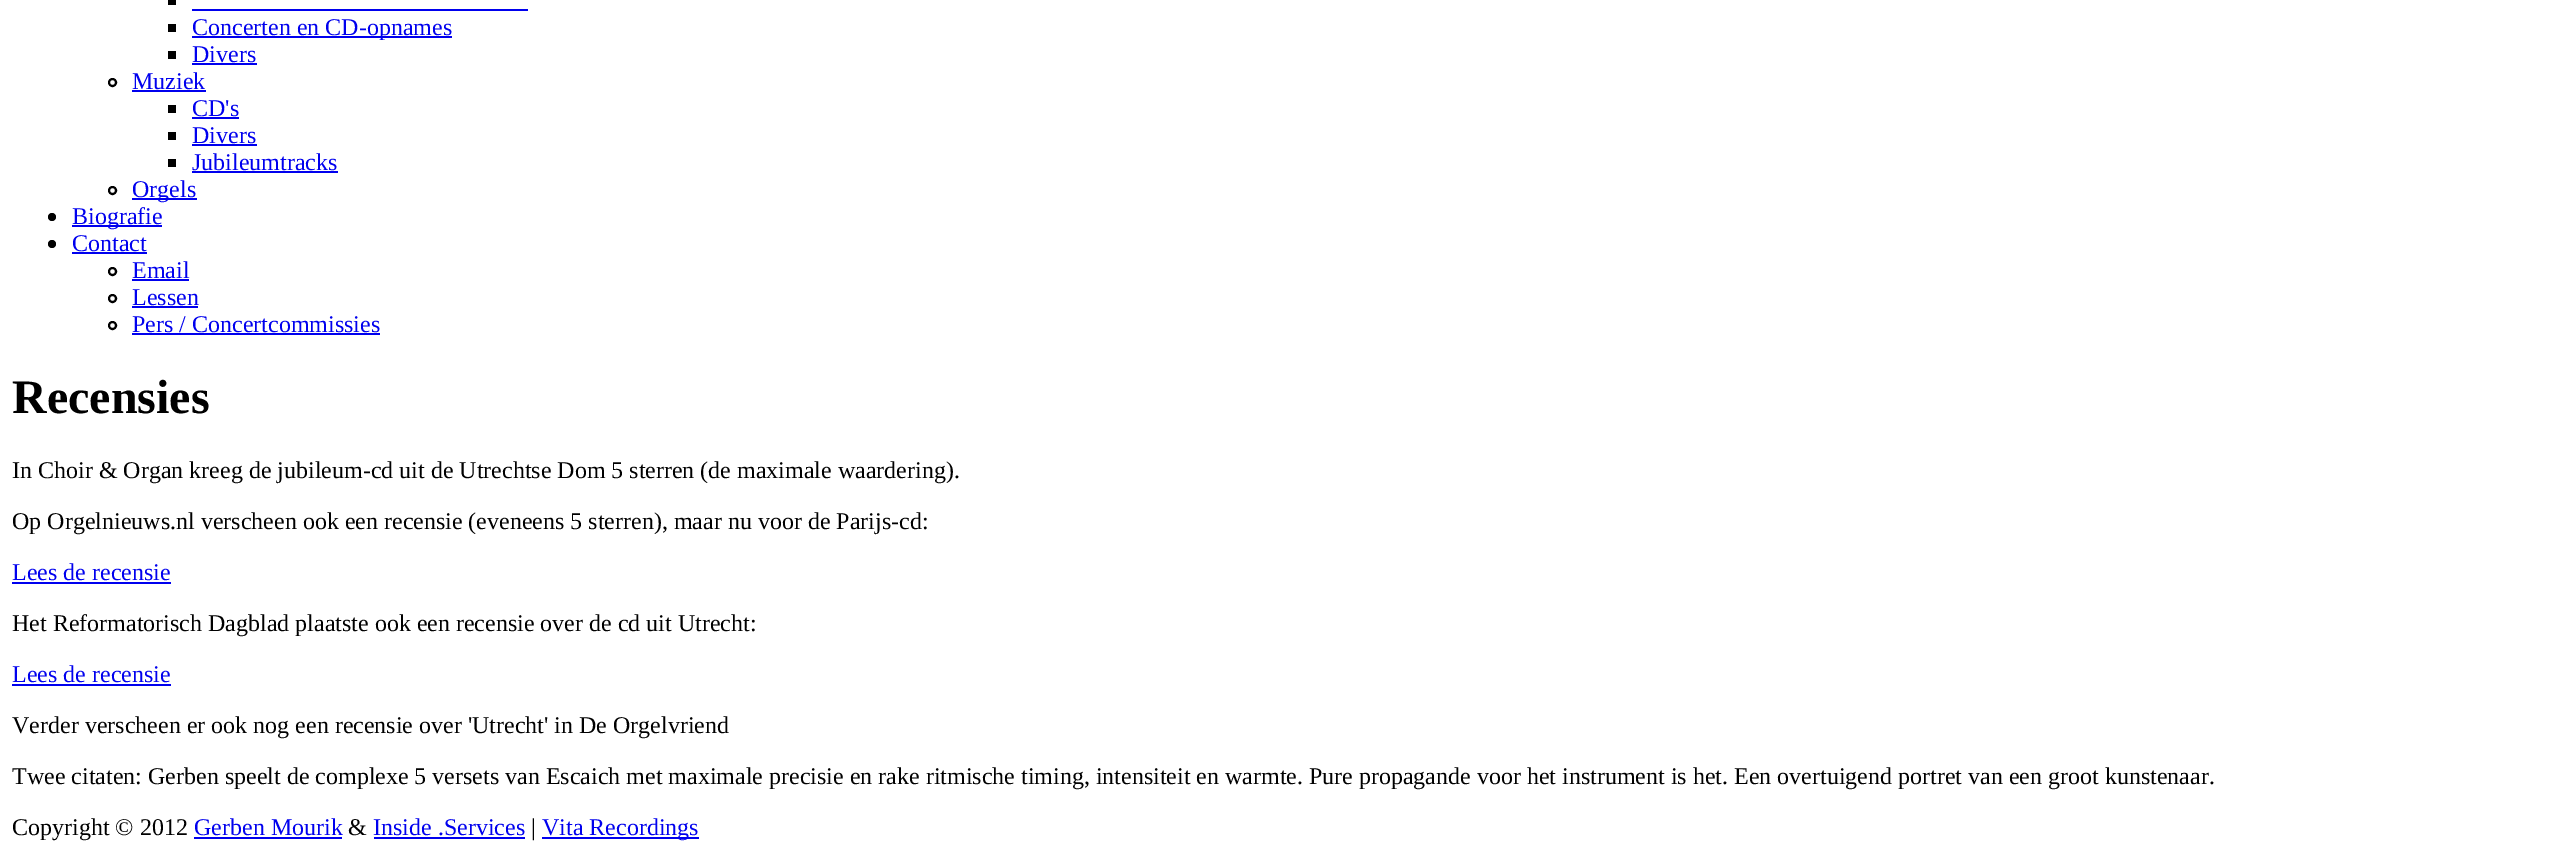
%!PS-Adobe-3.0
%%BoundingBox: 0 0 2573 851
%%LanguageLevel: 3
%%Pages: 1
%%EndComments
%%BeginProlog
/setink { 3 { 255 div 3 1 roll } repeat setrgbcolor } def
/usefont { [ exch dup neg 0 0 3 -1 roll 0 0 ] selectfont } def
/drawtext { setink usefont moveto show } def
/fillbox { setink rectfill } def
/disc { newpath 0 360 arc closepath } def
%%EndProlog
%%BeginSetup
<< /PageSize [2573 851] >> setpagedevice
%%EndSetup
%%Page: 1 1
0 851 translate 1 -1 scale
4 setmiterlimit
0 0 2573 851 255 255 255 fillbox
168 0 8 5 0 0 0 fillbox
192 9 336 2 0 0 238 fillbox
168 24 8 8 0 0 0 fillbox
192 36 260 2 0 0 238 fillbox
(Concerten en CD-opnames) 192 35 /LiberationSerif-Regular 24 0 0 238 drawtext
168 51 8 8 0 0 0 fillbox
(Divers) 192 62 /LiberationSerif-Regular 24 0 0 238 drawtext
192 63 65 2 0 0 238 fillbox
0 0 0 setink
2 setlinewidth
112.5 82.5 3.5 disc stroke
(Muziek) 132 89 /LiberationSerif-Regular 24 0 0 238 drawtext
132 90 74 2 0 0 238 fillbox
168 105 8 8 0 0 0 fillbox
(CD's) 192 116 /LiberationSerif-Regular 24 0 0 238 drawtext
192 117 47 2 0 0 238 fillbox
168 132 8 8 0 0 0 fillbox
(Divers) 192 143 /LiberationSerif-Regular 24 0 0 238 drawtext
192 144 65 2 0 0 238 fillbox
168 159 8 8 0 0 0 fillbox
(Jubileumtracks) 192 170 /LiberationSerif-Regular 24 0 0 238 drawtext
192 171 146 2 0 0 238 fillbox
0 0 0 setink
112.5 190.5 3.5 disc stroke
132 198 65 2 0 0 238 fillbox
(Orgels) 132 197 /LiberationSerif-Regular 24 0 0 238 drawtext
0 0 0 setink
52 217 4 disc fill
72 225 90 2 0 0 238 fillbox
(Biografie) 72 224 /LiberationSerif-Regular 24 0 0 238 drawtext
0 0 0 setink
52 244 4 disc fill
(Contact) 72 251 /LiberationSerif-Regular 24 0 0 238 drawtext
72 252 75 2 0 0 238 fillbox
0 0 0 setink
112.5 271.5 3.5 disc stroke
(Email) 132 278 /LiberationSerif-Regular 24 0 0 238 drawtext
132 279 57 2 0 0 238 fillbox
0 0 0 setink
112.5 298.5 3.5 disc stroke
(Lessen) 132 305 /LiberationSerif-Regular 24 0 0 238 drawtext
132 306 66 2 0 0 238 fillbox
0 0 0 setink
112.5 325.5 3.5 disc stroke
(Pers / Concertcommissies) 132 332 /LiberationSerif-Regular 24 0 0 238 drawtext
132 333 248 2 0 0 238 fillbox
(Recensies) 12 413 /LiberationSerif-Bold 48 0 0 0 drawtext
(In Choir & Organ kreeg de jubileum-cd uit de Utrechtse Dom 5 sterren \(de maximale waardering\).) 12 478 /LiberationSerif-Regular 24 0 0 0 drawtext
(Op Orgelnieuws.nl verscheen ook een recensie \(eveneens 5 sterren\), maar nu voor de Parijs-cd:) 12 529 /LiberationSerif-Regular 24 0 0 0 drawtext
(Lees de recensie) 12 580 /LiberationSerif-Regular 24 0 0 238 drawtext
12 582 159 2 0 0 238 fillbox
(Het Reformatorisch Dagblad plaatste ook een recensie over de cd uit Utrecht:) 12 631 /LiberationSerif-Regular 24 0 0 0 drawtext
(Lees de recensie) 12 682 /LiberationSerif-Regular 24 0 0 238 drawtext
12 684 159 2 0 0 238 fillbox
(Verder verscheen er ook nog een recensie over 'Utrecht' in De Orgelvriend) 12 733 /LiberationSerif-Regular 24 0 0 0 drawtext
(Twee citaten: Gerben speelt de complexe 5 versets van Escaich met maximale precisie en rake ritmische timing, intensiteit en warmte. Pure propagande voor het instrument is het. Een overtuigend portret van een groot kunstenaar.) 12 784 /LiberationSerif-Regular 24 0 0 0 drawtext
(Copyright © 2012) 12 835 /LiberationSerif-Regular 24 0 0 0 drawtext
(Gerben Mourik) 194 835 /LiberationSerif-Regular 24 0 0 238 drawtext
194 837 148 2 0 0 238 fillbox
(&) 348 835 /LiberationSerif-Regular 24 0 0 0 drawtext
(Inside .Services) 373 835 /LiberationSerif-Regular 24 0 0 238 drawtext
374 837 151 2 0 0 238 fillbox
(|) 531 835 /LiberationSerif-Regular 24 0 0 0 drawtext
542 837 157 2 0 0 238 fillbox
(Vita Recordings) 542 835 /LiberationSerif-Regular 24 0 0 238 drawtext
showpage
%%EOF
